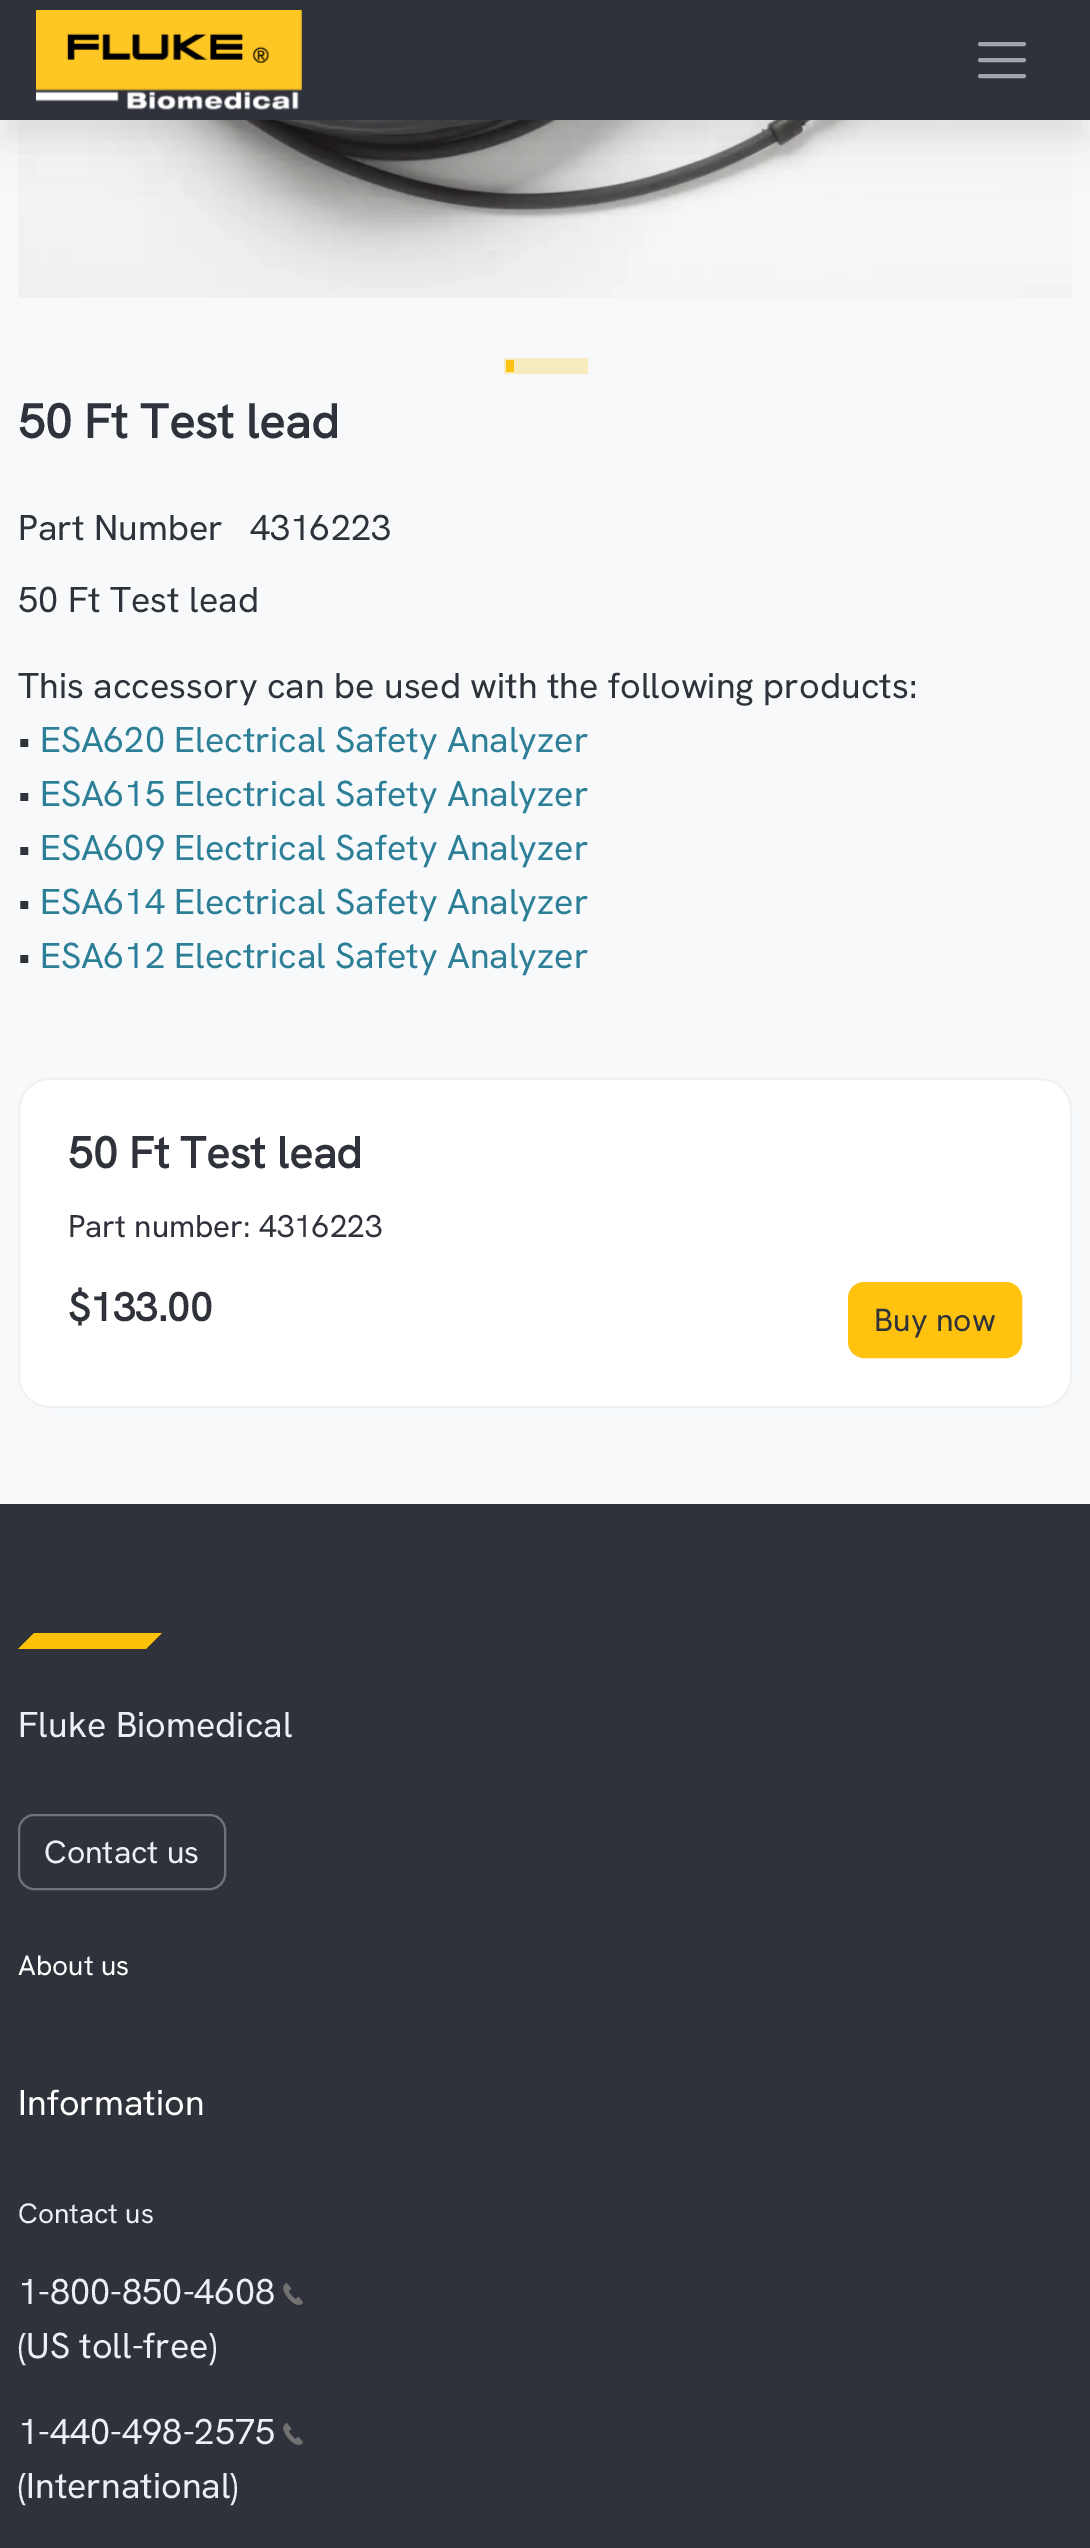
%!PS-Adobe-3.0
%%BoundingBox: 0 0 1090 2548
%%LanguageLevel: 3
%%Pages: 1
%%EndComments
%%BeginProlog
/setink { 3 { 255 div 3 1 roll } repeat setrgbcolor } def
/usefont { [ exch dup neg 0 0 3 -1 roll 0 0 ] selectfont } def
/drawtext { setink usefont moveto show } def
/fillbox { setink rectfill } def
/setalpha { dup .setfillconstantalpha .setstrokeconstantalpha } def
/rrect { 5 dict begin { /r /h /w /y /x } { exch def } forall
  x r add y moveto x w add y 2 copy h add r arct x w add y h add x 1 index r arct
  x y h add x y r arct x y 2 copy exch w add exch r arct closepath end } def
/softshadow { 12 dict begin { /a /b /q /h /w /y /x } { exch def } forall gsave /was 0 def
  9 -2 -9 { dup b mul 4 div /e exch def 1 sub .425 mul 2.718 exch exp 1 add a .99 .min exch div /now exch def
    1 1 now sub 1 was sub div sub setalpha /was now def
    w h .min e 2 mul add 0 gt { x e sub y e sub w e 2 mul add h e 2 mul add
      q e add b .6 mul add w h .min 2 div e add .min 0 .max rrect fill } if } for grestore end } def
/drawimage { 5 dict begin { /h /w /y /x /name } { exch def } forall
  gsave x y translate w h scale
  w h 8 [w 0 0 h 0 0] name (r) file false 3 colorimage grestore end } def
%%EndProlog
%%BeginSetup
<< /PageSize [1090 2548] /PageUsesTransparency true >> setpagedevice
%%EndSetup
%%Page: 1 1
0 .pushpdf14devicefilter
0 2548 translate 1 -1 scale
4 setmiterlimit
0 0 1090 2548 247 249 251 fillbox
(assets/img2.rgb) 18 120 1054 178 drawimage
0 0 0 setink
0 20 1090 120 0 10 0.04 softshadow
0 28 1090 120 0 28 0.05 softshadow
0 0 1090 120 47 50 58 fillbox
(assets/img1.rgb) 36 10 266 100 drawimage
161 163 166 setink
4 setlinewidth
1 setlinecap
980 44 moveto 1024 44 lineto 980 60 moveto 1024 60 lineto 980 76 moveto 1024 76 lineto stroke
514 360 72 12 249 235 192 fillbox
2 setlinewidth
0 setlinecap
505 359 82 14 rectstroke
506 360 8 12 255 194 14 fillbox
(50 Ft Test lead) 18 438 /HankenGrotesk-Bold 48 47 50 58 drawtext
(Part Number) 18 540 /HankenGrotesk-Regular 36 47 50 58 drawtext
(4316223) 250 540 /HankenGrotesk-Regular 36 47 50 58 drawtext
(50 Ft Test lead) 18 612 /HankenGrotesk-Regular 36 47 50 58 drawtext
(This accessory can be used with the following products:) 18 698 /HankenGrotesk-Regular 36 47 50 58 drawtext
(•) 18 752 /HankenGrotesk-Regular 36 47 50 58 drawtext
(ESA620 Electrical Safety Analyzer) 40 752 /HankenGrotesk-Regular 36 44 127 150 drawtext
(•) 18 806 /HankenGrotesk-Regular 36 47 50 58 drawtext
(ESA615 Electrical Safety Analyzer) 40 806 /HankenGrotesk-Regular 36 44 127 150 drawtext
(•) 18 860 /HankenGrotesk-Regular 36 47 50 58 drawtext
(ESA609 Electrical Safety Analyzer) 40 860 /HankenGrotesk-Regular 36 44 127 150 drawtext
(•) 18 914 /HankenGrotesk-Regular 36 47 50 58 drawtext
(ESA614 Electrical Safety Analyzer) 40 914 /HankenGrotesk-Regular 36 44 127 150 drawtext
(•) 18 968 /HankenGrotesk-Regular 36 47 50 58 drawtext
(ESA612 Electrical Safety Analyzer) 40 968 /HankenGrotesk-Regular 36 44 127 150 drawtext
255 255 255 setink
18 1078 1054 330 32 rrect fill
0.25 setalpha
193 198 209 setink
19 1079 1052 328 31 rrect stroke
1 setalpha
(50 Ft Test lead) 68 1168 /HankenGrotesk-Bold 44 47 50 58 drawtext
(Part number: 4316223) 68 1237 /HankenGrotesk-Regular 31.5 47 50 58 drawtext
($133.00) 68 1321 /HankenGrotesk-Bold 40 47 50 58 drawtext
255 194 14 setink
849 1283 172 74 15 rrect gsave fill grestore
stroke
(Buy now) 874 1331 /HankenGrotesk-Regular 32 47 50 58 drawtext
0 1504 1090 1044 47 50 58 fillbox
255 193 7 setink
34 1633 moveto 162 1633 lineto 146 1649 lineto 18 1649 lineto closepath fill
(Fluke Biomedical) 18 1737 /HankenGrotesk-Regular 36 235 240 245 drawtext
108 117 125 setink
19 1815 206 74 15 rrect stroke
(Contact us) 44 1863 /HankenGrotesk-Regular 32 235 240 245 drawtext
(About us) 18 1975 /HankenGrotesk-Regular 28 255 255 255 drawtext
(Information) 18 2115 /HankenGrotesk-Regular 36 255 255 255 drawtext
(Contact us) 18 2223 /HankenGrotesk-Regular 28 235 240 245 drawtext
(1-800-850-4608) 18 2304 /HankenGrotesk-Regular 36 235 240 245 drawtext
(assets/img3.rgb) 283 2283 20 22 drawimage
(\(US toll-free\)) 18 2358 /HankenGrotesk-Regular 36 235 240 245 drawtext
(1-440-498-2575) 18 2444 /HankenGrotesk-Regular 36 235 240 245 drawtext
(assets/img3.rgb) 283 2423 20 22 drawimage
(\(International\)) 18 2498 /HankenGrotesk-Regular 36 235 240 245 drawtext
.poppdf14devicefilter showpage
%%EOF
